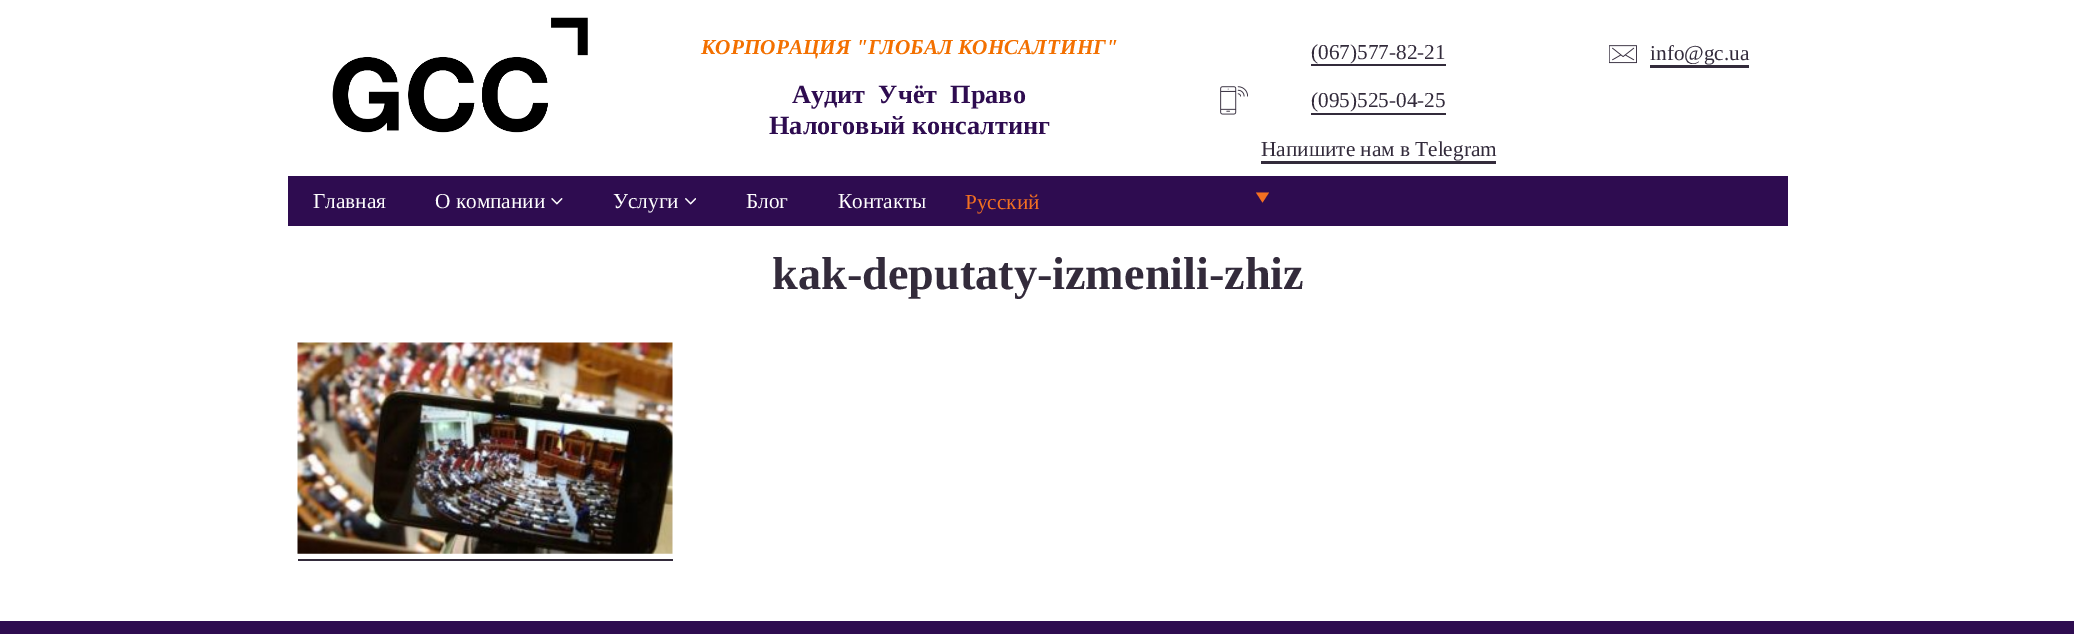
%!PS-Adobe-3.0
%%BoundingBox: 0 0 2074 634
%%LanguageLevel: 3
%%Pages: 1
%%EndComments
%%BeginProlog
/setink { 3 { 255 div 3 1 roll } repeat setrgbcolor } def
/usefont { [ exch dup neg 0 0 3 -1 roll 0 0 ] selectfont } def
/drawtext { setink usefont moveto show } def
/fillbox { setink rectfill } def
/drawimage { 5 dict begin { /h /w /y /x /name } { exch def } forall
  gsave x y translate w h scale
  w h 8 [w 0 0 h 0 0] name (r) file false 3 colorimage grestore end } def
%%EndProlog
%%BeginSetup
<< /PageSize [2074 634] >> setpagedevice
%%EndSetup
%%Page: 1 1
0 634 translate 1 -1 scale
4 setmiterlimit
0 0 2074 634 255 255 255 fillbox
(assets/img1.rgb) 332 17 256 116 drawimage
(КОРПОРАЦИЯ "ГЛОБАЛ КОНСАЛТИНГ") 701 54 /LiberationSerif-BoldItalic 21.25 243 112 0 drawtext
(Аудит  Учёт  Право) 792 103 /LiberationSerif-Bold 26.25 46 12 80 drawtext
(Налоговый консалтинг) 769 134 /LiberationSerif-Bold 26.25 46 12 80 drawtext
(assets/img2.rgb) 1220 86 28 29 drawimage
(\(067\)577-82-21) 1311 59 /LiberationSerif-Regular 21.25 51 43 59 drawtext
1311 64 135 2 51 43 59 fillbox
(\(095\)525-04-25) 1311 107 /LiberationSerif-Regular 21.25 51 43 59 drawtext
1311 113 135 2 51 43 59 fillbox
(Напишите нам в Telegram) 1261 156 /LiberationSerif-Regular 21.25 51 43 59 drawtext
1261 161 235 3 51 43 59 fillbox
(assets/img3.rgb) 1609 45 28 19 drawimage
(info@gc.ua) 1650 60 /LiberationSerif-Regular 21.25 51 43 59 drawtext
1650 65 99 3 51 43 59 fillbox
288 176 1500 50 46 12 80 fillbox
(Главная) 313 208 /LiberationSerif-Regular 21.25 255 255 255 drawtext
(О компании) 435 208 /LiberationSerif-Regular 21.25 255 255 255 drawtext
(assets/img4.rgb) 551 198 12 7 drawimage
(Услуги) 613 208 /LiberationSerif-Regular 21.25 255 255 255 drawtext
(assets/img5.rgb) 685 198 11 7 drawimage
(Блог) 746 208 /LiberationSerif-Regular 21.25 255 255 255 drawtext
(Контакты) 838 208 /LiberationSerif-Regular 21.25 255 255 255 drawtext
(Русский) 965 209 /LiberationSerif-Regular 21.25 243 112 33 drawtext
1256 192.5 moveto 1269 192.5 lineto 1262.5 202.5 lineto closepath fill
(kak-deputaty-izmenili-zhiz) 772 289 /LiberationSerif-Bold 46.25 51 43 59 drawtext
(assets/img6.rgb) 297 342 376 212 drawimage
298 559 375 2 51 43 59 fillbox
0 621 2074 13 46 12 80 fillbox
showpage
%%EOF
